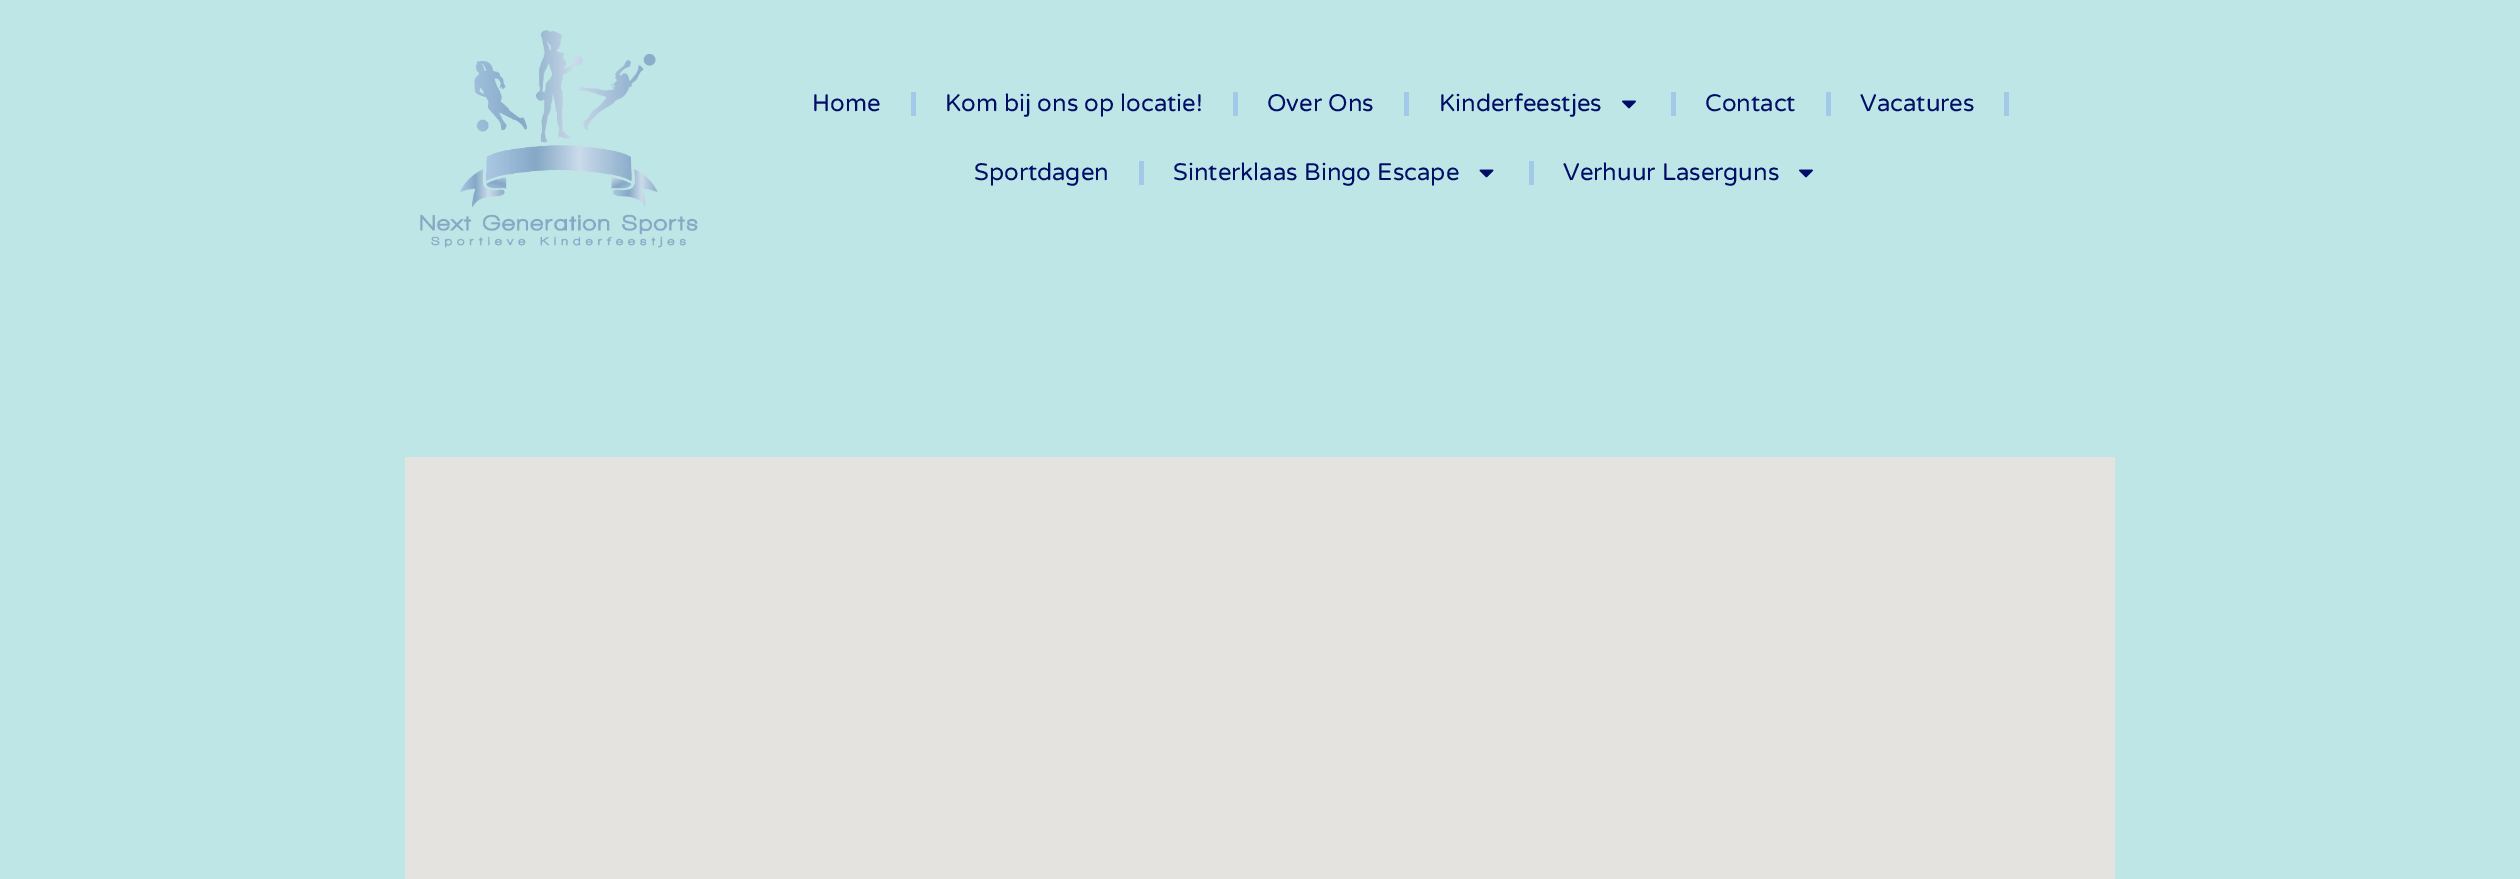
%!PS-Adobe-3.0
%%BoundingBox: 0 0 2520 879
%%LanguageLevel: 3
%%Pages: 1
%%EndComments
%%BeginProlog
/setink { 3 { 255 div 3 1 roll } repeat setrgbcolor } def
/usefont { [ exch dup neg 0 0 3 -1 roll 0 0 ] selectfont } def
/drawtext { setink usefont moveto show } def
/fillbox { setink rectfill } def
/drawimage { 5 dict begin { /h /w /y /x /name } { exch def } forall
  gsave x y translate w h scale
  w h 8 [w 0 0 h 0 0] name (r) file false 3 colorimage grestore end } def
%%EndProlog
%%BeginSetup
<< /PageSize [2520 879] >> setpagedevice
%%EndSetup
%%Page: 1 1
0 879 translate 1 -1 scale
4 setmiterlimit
0 0 2520 879 190 230 230 fillbox
(assets/img1.rgb) 420 30 278 218 drawimage
(Home) 812 111 /VarelaRound-Regular 24 0 13 103 drawtext
911 92 5 24 163 201 233 fillbox
(Kom bij ons op locatie!) 945 111 /VarelaRound-Regular 24 0 13 103 drawtext
1233 92 5 24 163 201 233 fillbox
(Over Ons) 1267 111 /VarelaRound-Regular 24 0 13 103 drawtext
1404 92 5 24 163 201 233 fillbox
(Kinderfeestjes) 1439 111 /VarelaRound-Regular 24 0 13 103 drawtext
(assets/img2.rgb) 1622 100 14 9 drawimage
1671 92 5 24 163 201 233 fillbox
(Contact) 1705 111 /VarelaRound-Regular 24 0 13 103 drawtext
1826 92 5 24 163 201 233 fillbox
(Vacatures) 1860 111 /VarelaRound-Regular 24 0 13 103 drawtext
2004 92 5 24 163 201 233 fillbox
(Sportdagen) 974 180 /VarelaRound-Regular 24 0 13 103 drawtext
1139 161 5 24 163 201 233 fillbox
(Sinterklaas Bingo Escape) 1173 180 /VarelaRound-Regular 24 0 13 103 drawtext
(assets/img3.rgb) 1479 169 15 9 drawimage
1529 161 5 24 163 201 233 fillbox
(Verhuur Laserguns) 1563 180 /VarelaRound-Regular 24 0 13 103 drawtext
(assets/img2.rgb) 1799 169 14 9 drawimage
405 457 1710 422 229 227 223 fillbox
showpage
%%EOF
